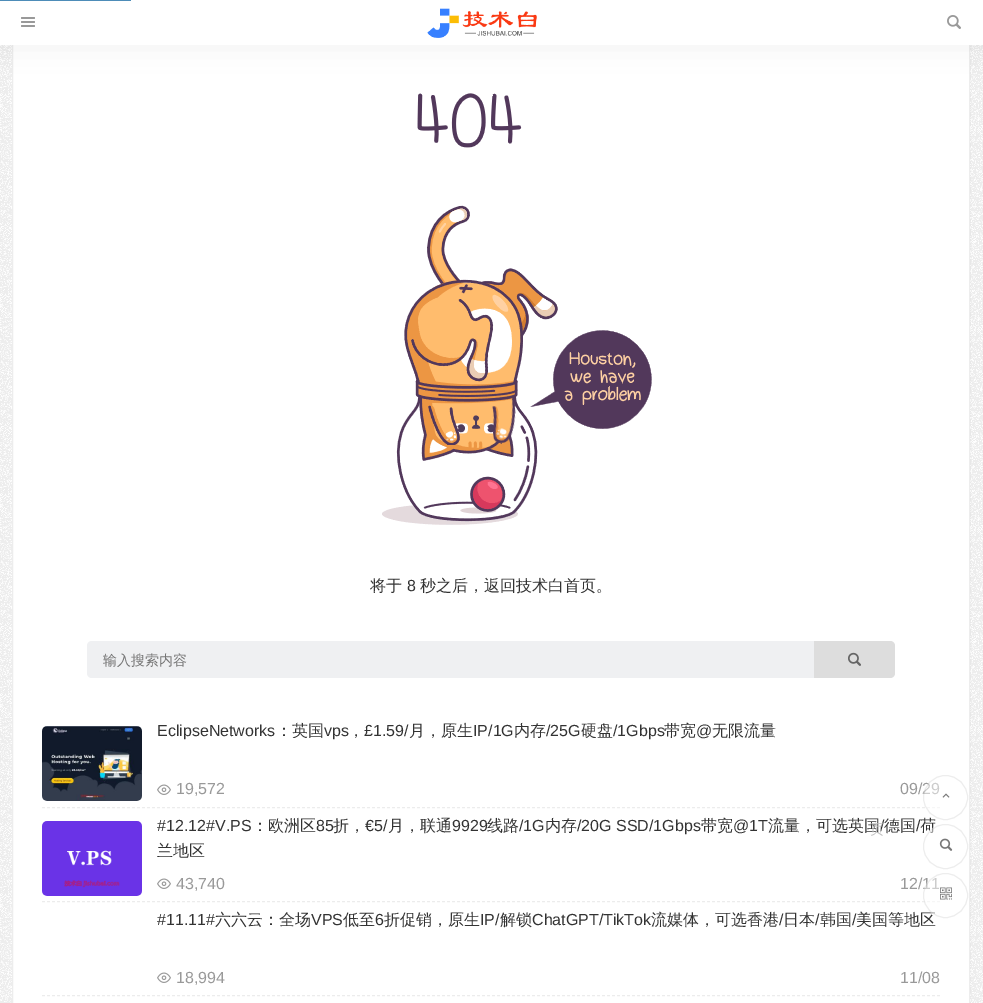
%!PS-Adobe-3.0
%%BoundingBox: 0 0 983 1003
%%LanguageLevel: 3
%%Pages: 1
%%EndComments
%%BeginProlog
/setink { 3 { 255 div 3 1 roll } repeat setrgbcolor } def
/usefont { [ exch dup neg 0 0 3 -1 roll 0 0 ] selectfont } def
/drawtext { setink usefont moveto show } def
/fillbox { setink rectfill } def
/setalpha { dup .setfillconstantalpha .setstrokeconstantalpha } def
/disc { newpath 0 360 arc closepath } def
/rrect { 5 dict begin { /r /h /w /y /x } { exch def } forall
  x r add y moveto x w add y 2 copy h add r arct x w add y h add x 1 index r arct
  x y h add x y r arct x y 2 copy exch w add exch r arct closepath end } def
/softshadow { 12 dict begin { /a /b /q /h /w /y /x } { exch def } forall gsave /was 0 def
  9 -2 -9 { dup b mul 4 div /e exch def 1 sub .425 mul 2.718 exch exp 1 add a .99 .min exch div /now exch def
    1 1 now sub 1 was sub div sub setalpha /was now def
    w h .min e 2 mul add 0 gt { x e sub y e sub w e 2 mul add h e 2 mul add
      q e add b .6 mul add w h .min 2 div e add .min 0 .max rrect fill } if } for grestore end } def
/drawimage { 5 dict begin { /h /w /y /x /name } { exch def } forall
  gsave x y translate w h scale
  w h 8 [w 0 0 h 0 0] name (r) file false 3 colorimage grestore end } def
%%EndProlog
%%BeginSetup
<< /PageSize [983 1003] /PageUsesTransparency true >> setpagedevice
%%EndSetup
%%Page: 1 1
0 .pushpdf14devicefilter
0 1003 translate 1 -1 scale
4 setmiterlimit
0 0 983 1003 255 255 255 fillbox
(assets/img1.rgb) 0 45 983 958 drawimage
12 45 958 958 255 255 255 fillbox
0.07 setalpha
0 0 0 setink
12.5 27.5 957 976 rectstroke
1 setalpha
(assets/img4.rgb) 382 93 270 432 drawimage
0 3 983 45 0 15 0.06 softshadow
0 0 983 45 255 255 255 fillbox
0 0 131 1 77 140 184 fillbox
(assets/img2.rgb) 427 8 110 30 drawimage
153 153 153 setink
21 21 14 2 1 rrect fill
21 17 14 2 1 rrect fill
21 25 14 2 1 rrect fill
(assets/img3.rgb) 947 15 14 14 drawimage
(将于) 370 591 /WenQuanYiZenHei-Medium 16 51 51 51 drawtext
(8) 407 591 /LiberationSans-Regular 16 51 51 51 drawtext
(秒之后，返回技术白首页。) 420 591 /WenQuanYiZenHei-Medium 16 51 51 51 drawtext
239 240 242 setink
92 641 moveto 814 641 lineto 814 678 lineto 92 678 lineto 89 678 87 676 87 673 curveto 87 646 lineto 87 643 89 641 92 641 curveto closepath fill
(输入搜索内容) 103 665 /WenQuanYiZenHei-Medium 14 117 117 117 drawtext
221 221 221 setink
814 641 moveto 890 641 lineto 893 641 895 643 895 646 curveto 895 673 lineto 895 676 893 678 890 678 curveto 814 678 lineto closepath fill
(assets/img5.rgb) 848 652 13 14 drawimage
236 236 236 setink
[3 2] 0 setdash
42 807.5 moveto 940 807.5 lineto stroke
(assets/img6.rgb) 42 726 100 75 drawimage
(EclipseNetworks) 157 736 /LiberationSans-Regular 16 51 51 51 drawtext
(：英国) 276 736 /WenQuanYiZenHei-Medium 16 51 51 51 drawtext
(vps) 324 736 /LiberationSans-Regular 16 51 51 51 drawtext
(，) 348 736 /WenQuanYiZenHei-Medium 16 51 51 51 drawtext
(£1.59/) 364 736 /LiberationSans-Regular 16 51 51 51 drawtext
(月，原生) 409 736 /WenQuanYiZenHei-Medium 16 51 51 51 drawtext
(IP/1G) 473 736 /LiberationSans-Regular 16 51 51 51 drawtext
(内存) 514 736 /WenQuanYiZenHei-Medium 16 51 51 51 drawtext
(/25G) 546 736 /LiberationSans-Regular 16 51 51 51 drawtext
(硬盘) 581 736 /WenQuanYiZenHei-Medium 16 51 51 51 drawtext
(/1Gbps) 613 736 /LiberationSans-Regular 16 51 51 51 drawtext
(带宽) 664 736 /WenQuanYiZenHei-Medium 16 51 51 51 drawtext
(@) 696 736 /LiberationSans-Regular 16 51 51 51 drawtext
(无限流量) 712 736 /WenQuanYiZenHei-Medium 16 51 51 51 drawtext
(assets/img7.rgb) 157 784 14 11 drawimage
(19,572) 176 794 /LiberationSans-Regular 16 153 153 153 drawtext
(09/29) 900 794 /LiberationSans-Regular 16 153 153 153 drawtext
236 236 236 setink
42 901.5 moveto 940 901.5 lineto stroke
(assets/img8.rgb) 42 821 100 75 drawimage
(#12.12#V.PS) 157 831 /LiberationSans-Regular 16 51 51 51 drawtext
(：欧洲区) 252 831 /WenQuanYiZenHei-Medium 16 51 51 51 drawtext
(85) 316 831 /LiberationSans-Regular 16 51 51 51 drawtext
(折，) 333 831 /WenQuanYiZenHei-Medium 16 51 51 51 drawtext
(€5/) 365 831 /LiberationSans-Regular 16 51 51 51 drawtext
(月，联通) 388 831 /WenQuanYiZenHei-Medium 16 51 51 51 drawtext
(9929) 452 831 /LiberationSans-Regular 16 51 51 51 drawtext
(线路) 487 831 /WenQuanYiZenHei-Medium 16 51 51 51 drawtext
(/1G) 519 831 /LiberationSans-Regular 16 51 51 51 drawtext
(内存) 545 831 /WenQuanYiZenHei-Medium 16 51 51 51 drawtext
(/20G SSD/1Gbps) 577 831 /LiberationSans-Regular 16 51 51 51 drawtext
(带宽) 701 831 /WenQuanYiZenHei-Medium 16 51 51 51 drawtext
(@1T) 733 831 /LiberationSans-Regular 16 51 51 51 drawtext
(流量，可选英国) 768 831 /WenQuanYiZenHei-Medium 16 51 51 51 drawtext
(/) 880 831 /LiberationSans-Regular 16 51 51 51 drawtext
(德国) 884 831 /WenQuanYiZenHei-Medium 16 51 51 51 drawtext
(/) 916 831 /LiberationSans-Regular 16 51 51 51 drawtext
(荷) 920 831 /WenQuanYiZenHei-Medium 16 51 51 51 drawtext
(兰地区) 157 856 /WenQuanYiZenHei-Medium 16 51 51 51 drawtext
(assets/img7.rgb) 157 878 14 11 drawimage
(43,740) 176 889 /LiberationSans-Regular 16 153 153 153 drawtext
(12/11) 900 889 /LiberationSans-Regular 16 153 153 153 drawtext
236 236 236 setink
42 995.5 moveto 940 995.5 lineto stroke
(#11.11#) 157 925 /LiberationSans-Regular 16 51 51 51 drawtext
(六六云：全场) 215 925 /WenQuanYiZenHei-Medium 16 51 51 51 drawtext
(VPS) 311 925 /LiberationSans-Regular 16 51 51 51 drawtext
(低至) 343 925 /WenQuanYiZenHei-Medium 16 51 51 51 drawtext
(6) 375 925 /LiberationSans-Regular 16 51 51 51 drawtext
(折促销，原生) 384 925 /WenQuanYiZenHei-Medium 16 51 51 51 drawtext
(IP/) 480 925 /LiberationSans-Regular 16 51 51 51 drawtext
(解锁) 500 925 /WenQuanYiZenHei-Medium 16 51 51 51 drawtext
(ChatGPT/TikTok) 532 925 /LiberationSans-Regular 16 51 51 51 drawtext
(流媒体，可选香港) 651 925 /WenQuanYiZenHei-Medium 16 51 51 51 drawtext
(/) 779 925 /LiberationSans-Regular 16 51 51 51 drawtext
(日本) 783 925 /WenQuanYiZenHei-Medium 16 51 51 51 drawtext
(/) 815 925 /LiberationSans-Regular 16 51 51 51 drawtext
(韩国) 820 925 /WenQuanYiZenHei-Medium 16 51 51 51 drawtext
(/) 852 925 /LiberationSans-Regular 16 51 51 51 drawtext
(美国等地区) 856 925 /WenQuanYiZenHei-Medium 16 51 51 51 drawtext
(assets/img7.rgb) 157 972 14 11 drawimage
(18,994) 176 983 /LiberationSans-Regular 16 153 153 153 drawtext
(11/08) 900 983 /LiberationSans-Regular 16 153 153 153 drawtext
0.5 setalpha
255 255 255 setink
945.5 797.5 22.5 disc fill
0.07 setalpha
0 0 0 setink
[] 0 setdash
945.5 797.5 22 disc stroke
1 setalpha
(assets/img9.rgb) 942 793 8 5 drawimage
(页) 870 834 /WenQuanYiZenHei-Medium 14 194 194 194 drawtext
0.5 setalpha
255 255 255 setink
945.5 895.5 22.5 disc fill
0.07 setalpha
0 0 0 setink
945.5 895.5 22 disc stroke
1 setalpha
(assets/img10.rgb) 940 887 12 13 drawimage
0.5 setalpha
255 255 255 setink
945.5 846.5 22.5 disc fill
0.07 setalpha
0 0 0 setink
945.5 846.5 22 disc stroke
1 setalpha
(assets/img11.rgb) 939 838 14 13 drawimage
.poppdf14devicefilter showpage
%%EOF
